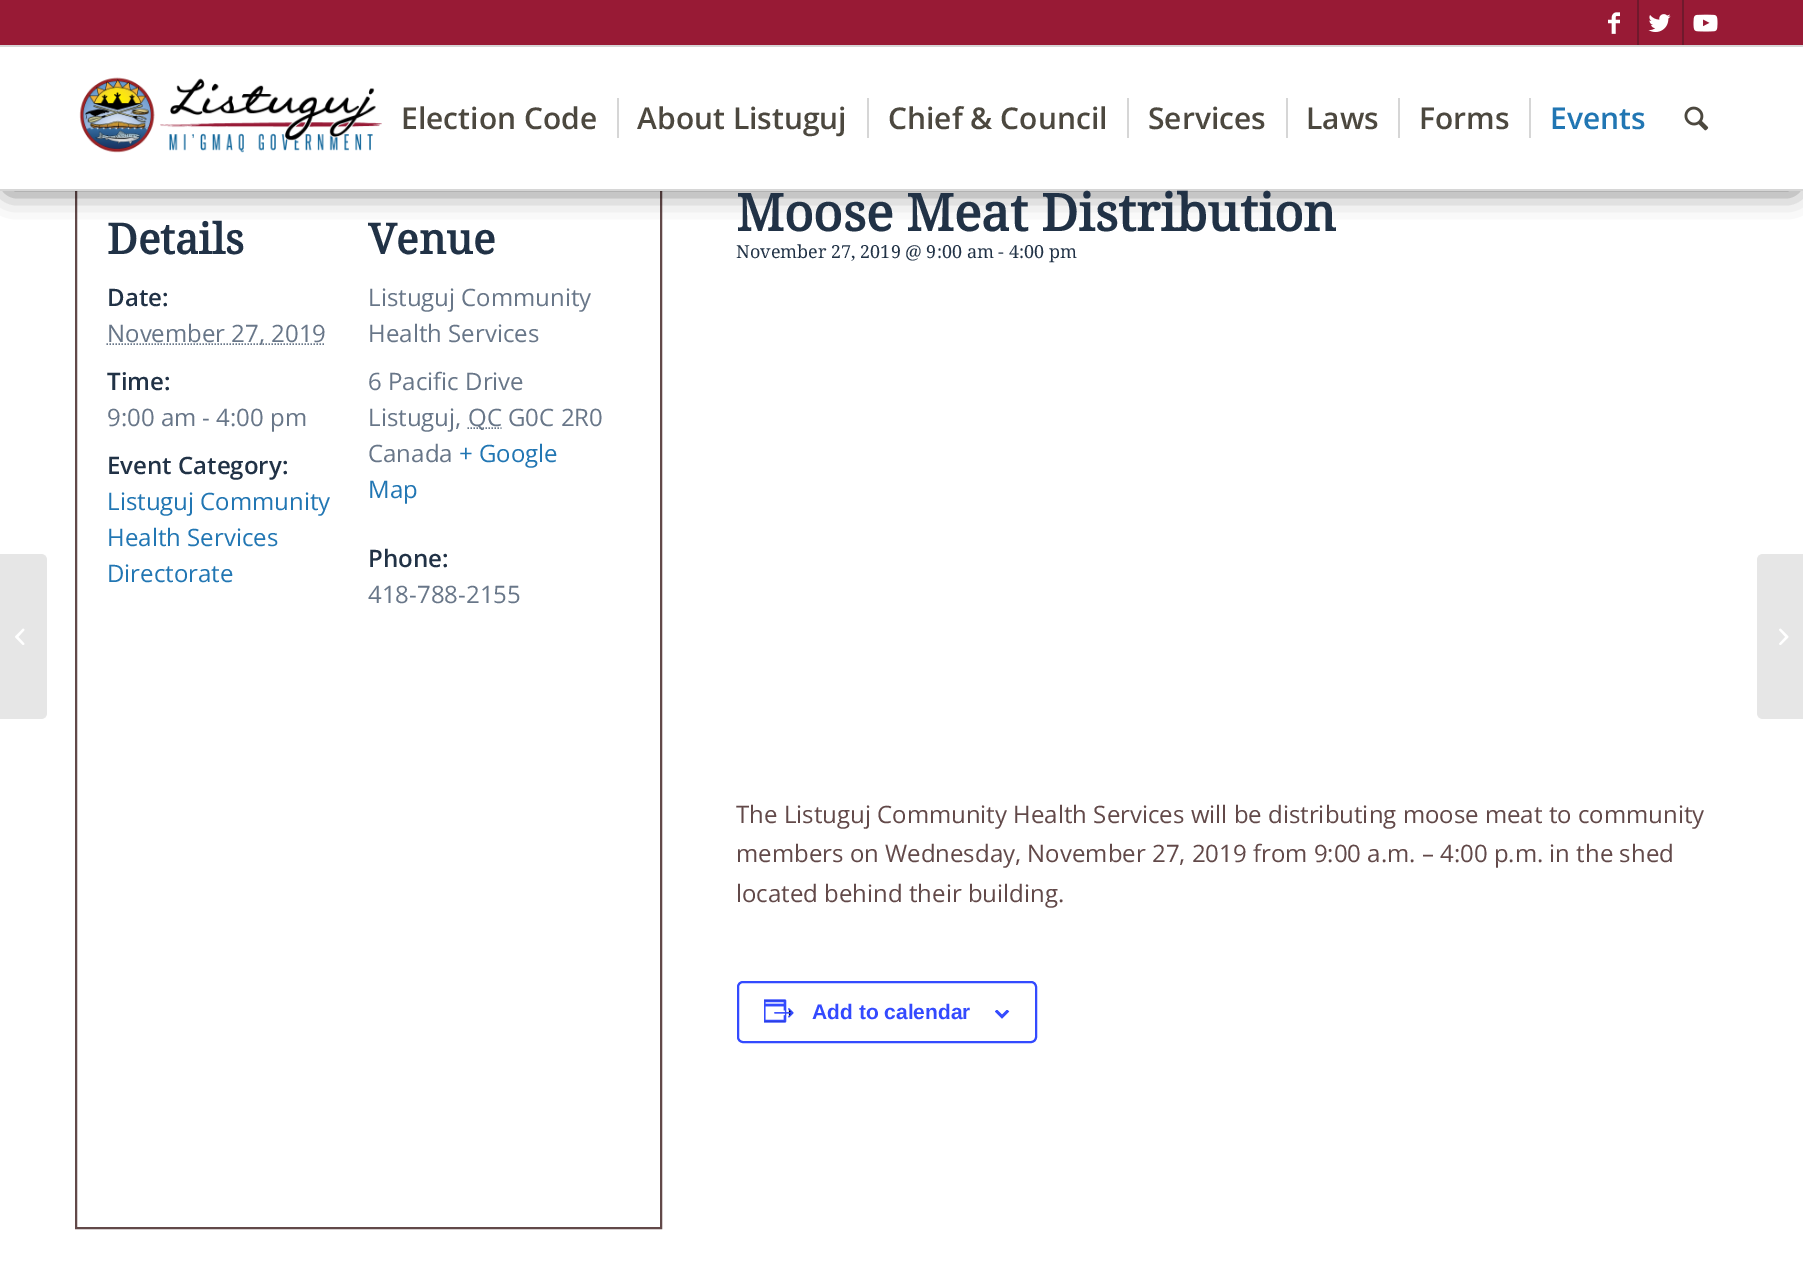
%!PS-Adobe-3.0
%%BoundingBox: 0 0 1803 1271
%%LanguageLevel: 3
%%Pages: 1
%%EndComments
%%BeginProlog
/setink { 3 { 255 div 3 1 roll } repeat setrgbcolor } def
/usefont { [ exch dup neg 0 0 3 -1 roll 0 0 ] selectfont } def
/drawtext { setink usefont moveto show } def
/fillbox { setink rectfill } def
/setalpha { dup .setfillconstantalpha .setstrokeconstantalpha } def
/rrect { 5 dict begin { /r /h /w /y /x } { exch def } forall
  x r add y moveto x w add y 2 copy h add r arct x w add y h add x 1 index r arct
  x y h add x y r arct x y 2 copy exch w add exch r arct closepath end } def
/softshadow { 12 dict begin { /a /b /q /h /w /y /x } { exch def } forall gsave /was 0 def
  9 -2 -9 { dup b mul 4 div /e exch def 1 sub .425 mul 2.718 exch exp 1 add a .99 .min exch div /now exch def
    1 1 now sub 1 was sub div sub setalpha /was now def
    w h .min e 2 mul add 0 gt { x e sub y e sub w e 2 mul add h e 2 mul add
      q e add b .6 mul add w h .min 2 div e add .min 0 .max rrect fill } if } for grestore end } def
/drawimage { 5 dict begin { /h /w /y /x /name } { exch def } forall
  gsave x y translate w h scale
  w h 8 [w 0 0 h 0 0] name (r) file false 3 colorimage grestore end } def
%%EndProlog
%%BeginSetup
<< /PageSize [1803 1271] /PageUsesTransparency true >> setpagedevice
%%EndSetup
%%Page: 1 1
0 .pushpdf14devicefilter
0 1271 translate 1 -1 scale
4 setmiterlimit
0 0 1803 1271 255 255 255 fillbox
98 73 73 setink
2 setlinewidth
76 187 585 1041 rectstroke
0 0 0 setink
9 15 1785 173 0 14 0.75 softshadow
0 47 1803 142 255 255 255 fillbox
0 0 1803 45 152 26 53 fillbox
0 45 1803 2 214 214 214 fillbox
1637 0 2 45 112 25 44 fillbox
(assets/img1.rgb) 1608 12 12 22 drawimage
1682 0 2 45 112 25 44 fillbox
(assets/img2.rgb) 1648 14 23 18 drawimage
(assets/img3.rgb) 1693 14 25 18 drawimage
0 189 1803 2 214 214 214 fillbox
(assets/img4.rgb) 79 77 303 76 drawimage
(Election Code) 401 129 /OpenSans-SemiBold 30 76 72 63 drawtext
(About Listuguj) 637 129 /OpenSans-SemiBold 30 76 72 63 drawtext
617 98 2 40 214 214 214 fillbox
(Chief & Council) 888 129 /OpenSans-SemiBold 30 76 72 63 drawtext
867 98 2 40 214 214 214 fillbox
(Services) 1148 129 /OpenSans-SemiBold 30 76 72 63 drawtext
1127 98 2 40 214 214 214 fillbox
(Laws) 1306 129 /OpenSans-SemiBold 30 76 72 63 drawtext
1286 98 2 40 214 214 214 fillbox
(Forms) 1419 129 /OpenSans-SemiBold 30 76 72 63 drawtext
1398 98 2 40 214 214 214 fillbox
(Events) 1550 129 /OpenSans-SemiBold 30 33 118 179 drawtext
1529 98 2 40 214 214 214 fillbox
(assets/img5.rgb) 1684 106 25 25 drawimage
230 230 230 setink
0 554 moveto 41 554 lineto 44.5 554 47 556.5 47 560 curveto 47 713 lineto 47 716.5 44.5 719 41 719 curveto 0 719 lineto closepath fill
(assets/img6.rgb) 15 628 10 17 drawimage
(Details) 107 254 /DroidSerif-Bold 42 33 50 70 drawtext
(Date:) 107 306 /OpenSans-SemiBold 24 33 50 70 drawtext
104 118 136 setink
1.5 setlinewidth
[1.5 1.5] 0 setdash
106.5 344 moveto 325.5 344 lineto stroke
(November 27, 2019) 107 342 /OpenSans-Regular 24 104 118 136 drawtext
(Time:) 107 390 /OpenSans-SemiBold 24 33 50 70 drawtext
(9:00 am - 4:00 pm) 107 426 /OpenSans-Regular 24 104 118 136 drawtext
(Event Category:) 107 474 /OpenSans-SemiBold 24 33 50 70 drawtext
(Listuguj Community) 107 510 /OpenSans-Regular 24 33 118 179 drawtext
(Health Services) 107 546 /OpenSans-Regular 24 33 118 179 drawtext
(Directorate) 107 582 /OpenSans-Regular 24 33 118 179 drawtext
(Venue) 368 254 /DroidSerif-Bold 42 33 50 70 drawtext
(Listuguj Community) 368 306 /OpenSans-Regular 24 104 118 136 drawtext
(Health Services) 368 342 /OpenSans-Regular 24 104 118 136 drawtext
(6 Pacific Drive) 368 390 /OpenSans-Regular 24 104 118 136 drawtext
(Listuguj,) 368 426 /OpenSans-Regular 24 104 118 136 drawtext
467.5 428 moveto 501.5 428 lineto stroke
(QC G0C 2R0) 468 426 /OpenSans-Regular 24 104 118 136 drawtext
(Canada) 368 462 /OpenSans-Regular 24 104 118 136 drawtext
(+ Google) 459 462 /OpenSans-Regular 24 33 118 179 drawtext
(Map) 368 498 /OpenSans-Regular 24 33 118 179 drawtext
(Phone:) 368 567 /OpenSans-SemiBold 24 33 50 70 drawtext
(418-788-2155) 368 603 /OpenSans-Regular 24 104 118 136 drawtext
(Moose Meat Distribution) 736 231 /DroidSerif-Bold 51 33 50 70 drawtext
(November 27, 2019 @ 9:00 am - 4:00 pm) 736 258 /DroidSerif-Regular 18 33 50 70 drawtext
(The Listuguj Community Health Services will be distributing moose meat to community) 736 823 /OpenSans-Regular 24 98 73 73 drawtext
(members on Wednesday, November 27, 2019 from 9:00 a.m. – 4:00 p.m. in the shed) 736 862 /OpenSans-Regular 24 98 73 73 drawtext
(located behind their building.) 736 902 /OpenSans-Regular 24 98 73 73 drawtext
51 74 255 setink
2 setlinewidth
[] 0 setdash
738 982 298 60 5 rrect stroke
(assets/img7.rgb) 764 999 30 24 drawimage
(Add to calendar) 812 1019 /LiberationSans-Bold 21 51 74 255 drawtext
(assets/img8.rgb) 995 1010 15 9 drawimage
230 230 230 setink
1763 554 moveto 1803 554 lineto 1803 719 lineto 1763 719 lineto 1759.5 719 1757 716.5 1757 713 curveto 1757 560 lineto 1757 556.5 1759.5 554 1763 554 curveto closepath fill
(assets/img9.rgb) 1779 628 10 17 drawimage
.poppdf14devicefilter showpage
%%EOF
